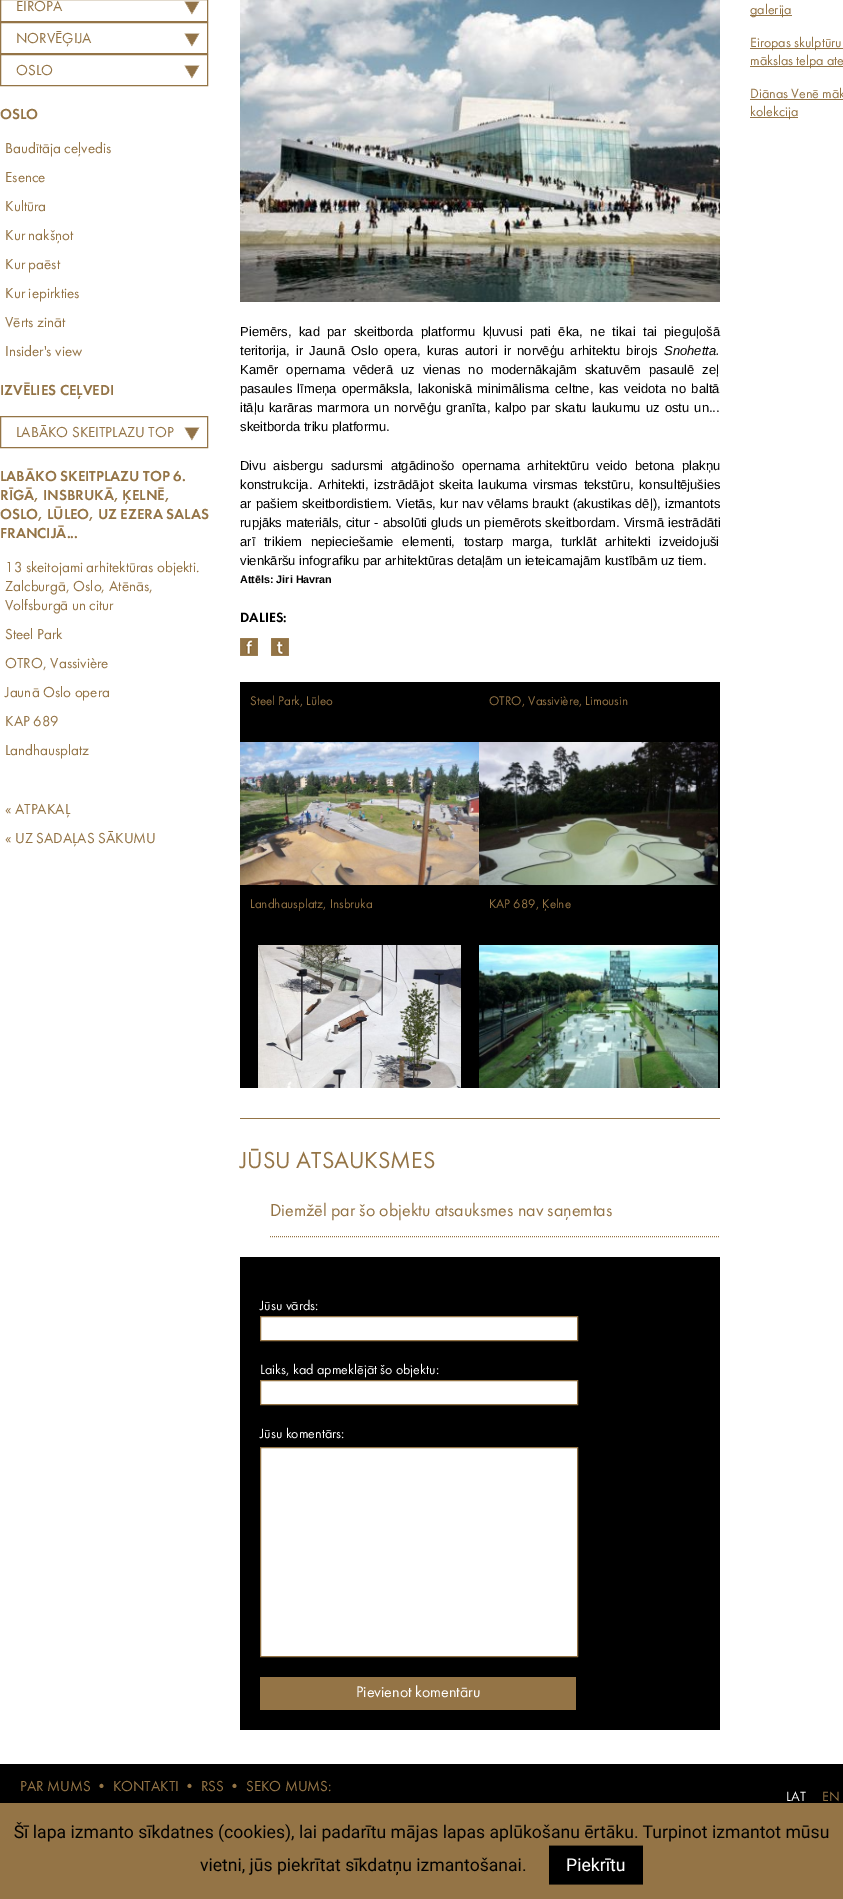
%!PS-Adobe-3.0
%%BoundingBox: 0 0 843 1899
%%LanguageLevel: 3
%%Pages: 1
%%EndComments
%%BeginProlog
/setink { 3 { 255 div 3 1 roll } repeat setrgbcolor } def
/usefont { [ exch dup neg 0 0 3 -1 roll 0 0 ] selectfont } def
/drawtext { setink usefont moveto show } def
/fillbox { setink rectfill } def
/drawimage { 5 dict begin { /h /w /y /x /name } { exch def } forall
  gsave x y translate w h scale
  w h 8 [w 0 0 h 0 0] name (r) file false 3 colorimage grestore end } def
%%EndProlog
%%BeginSetup
<< /PageSize [843 1899] >> setpagedevice
%%EndSetup
%%Page: 1 1
0 1899 translate 1 -1 scale
4 setmiterlimit
0 0 843 1899 255 255 255 fillbox
148 116 70 setink
0.5 -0.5 207 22 rectstroke
(EIROPA) 16 11 /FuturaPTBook-Regular 15 148 116 70 drawtext
(assets/img1.rgb) 184 1 16 14 drawimage
0.5 22.5 207 31 rectstroke
(NORVĒĢIJA) 16 43 /FuturaPTBook-Regular 15 148 116 70 drawtext
(assets/img1.rgb) 184 33 16 14 drawimage
0.5 54.5 207 31 rectstroke
(OSLO) 16 75 /FuturaPTBook-Regular 15 148 116 70 drawtext
(assets/img1.rgb) 184 65 16 14 drawimage
(OSLO) 0 119 /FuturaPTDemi-Regular 15 148 116 70 drawtext
(Baudītāja ceļvedis) 5 153 /FuturaPTBook-Regular 15 148 116 70 drawtext
(Esence) 5 182 /FuturaPTBook-Regular 15 148 116 70 drawtext
(Kultūra) 5 211 /FuturaPTBook-Regular 15 148 116 70 drawtext
(Kur nakšņot) 5 240 /FuturaPTBook-Regular 15 148 116 70 drawtext
(Kur paēst) 5 269 /FuturaPTBook-Regular 15 148 116 70 drawtext
(Kur iepirkties) 5 298 /FuturaPTBook-Regular 15 148 116 70 drawtext
(Vērts zināt) 5 327 /FuturaPTBook-Regular 15 148 116 70 drawtext
(Insider's view) 5 356 /FuturaPTBook-Regular 15 148 116 70 drawtext
(IZVĒLIES CEĻVEDI) 0 395 /FuturaPTDemi-Regular 15 148 116 70 drawtext
0.5 416.5 207 31 rectstroke
(LABĀKO SKEITPLAZU TOP) 16 437 /FuturaPTBook-Regular 15 148 116 70 drawtext
(assets/img1.rgb) 184 427 16 14 drawimage
(LABĀKO SKEITPLAZU TOP 6.) 0 481 /FuturaPTDemi-Regular 15 148 116 70 drawtext
(RĪGĀ, INSBRUKĀ, ĶELNĒ,) 0 500 /FuturaPTDemi-Regular 15 148 116 70 drawtext
(OSLO, LŪLEO, UZ EZERA SALAS) 0 519 /FuturaPTDemi-Regular 15 148 116 70 drawtext
(FRANCIJĀ...) 0 538 /FuturaPTDemi-Regular 15 148 116 70 drawtext
(13 skeitojami arhitektūras objekti.) 5 572 /FuturaPTBook-Regular 15 148 116 70 drawtext
(Zalcburgā, Oslo, Atēnās,) 5 591 /FuturaPTBook-Regular 15 148 116 70 drawtext
(Volfsburgā un citur) 5 610 /FuturaPTBook-Regular 15 148 116 70 drawtext
(Steel Park) 5 639 /FuturaPTBook-Regular 15 148 116 70 drawtext
(OTRO, Vassivière) 5 668 /FuturaPTBook-Regular 15 148 116 70 drawtext
(Jaunā Oslo opera) 5 697 /FuturaPTBook-Regular 15 148 116 70 drawtext
(KAP 689) 5 726 /FuturaPTBook-Regular 15 148 116 70 drawtext
(Landhausplatz) 5 755 /FuturaPTBook-Regular 15 148 116 70 drawtext
(« ATPAKAĻ) 5 814 /FuturaPTBook-Regular 15 148 116 70 drawtext
(« UZ SADAĻAS SĀKUMU) 5 843 /FuturaPTBook-Regular 15 148 116 70 drawtext
750 15 42 1 148 116 70 fillbox
(galerija) 750 14 /FuturaPTBook-Regular 14 148 116 70 drawtext
750 48 93 1 148 116 70 fillbox
(Eiropas skulptūru) 750 47 /FuturaPTBook-Regular 14 148 116 70 drawtext
750 66 93 1 148 116 70 fillbox
(mākslas telpa ate) 750 65 /FuturaPTBook-Regular 14 148 116 70 drawtext
(Diānas Venē māk) 750 98 /FuturaPTBook-Regular 14 148 116 70 drawtext
750 99 93 1 148 116 70 fillbox
750 117 48 1 148 116 70 fillbox
(kolekcija) 750 116 /FuturaPTBook-Regular 14 148 116 70 drawtext
(assets/img2.rgb) 240 0 480 302 drawimage
/LiberationSans-Regular 13 usefont
0 0 0 setink
240 336 moveto 3.9 0 32 (Piemērs, kad par skeitborda platformu kļuvusi pati ēka, ne tikai tai pieguļošā) widthshow
240 355 moveto 2.6 0 32 (teritorija, ir Jaunā Oslo opera, kuras autori ir norvēģu arhitektu birojs) widthshow
(Snohetta.) 664 355 /LiberationSans-Italic 13 0 0 0 drawtext
/LiberationSans-Regular 13 usefont
240 374 moveto 4.5 0 32 (Kamēr opernama vēderā uz vienas no modernākajām skatuvēm pasaulē zeļ) widthshow
240 393 moveto 1.75 0 32 (pasaules līmeņa opermāksla, lakoniskā minimālisma celtne, kas veidota no baltā) widthshow
240 412 moveto 1.5 0 32 (itāļu karāras marmora un norvēģu granīta, kalpo par skatu laukumu uz ostu un...) widthshow
(skeitborda triku platformu.) 240 431 /LiberationSans-Regular 13 0 0 0 drawtext
240 470 moveto 3.75 0 32 (Divu aisbergu sadursmi atgādinošo opernama arhitektūru veido betona plakņu) widthshow
240 489 moveto 2 0 32 (konstrukcija. Arhitekti, izstrādājot skeita laukuma virsmas tekstūru, konsultējušies) widthshow
240 508 moveto 0.5 0 32 (ar pašiem skeitbordistiem. Vietās, kur nav vēlams braukt \(akustikas dēļ\), izmantots) widthshow
240 527 moveto 0.25 0 32 (rupjāks materiāls, citur - absolūti gluds un piemērots skeitbordam. Virsmā iestrādāti) widthshow
240 546 moveto 5 0 32 (arī trikiem nepieciešamie elementi, tostarp marga, turklāt arhitekti izveidojuši) widthshow
(vienkāršu infografiku par arhitektūras detaļām un ieteicamajām kustībām uz tiem.) 240 565 /LiberationSans-Regular 13 0 0 0 drawtext
(Attēls: Jiri Havran) 240 583 /LiberationSans-Bold 10.75 0 0 0 drawtext
(DALIES:) 240 622 /FuturaPTDemi-Regular 14 0 0 0 drawtext
(assets/img3.rgb) 240 638 18 18 drawimage
(assets/img4.rgb) 271 638 18 18 drawimage
240 682 480 406 0 0 0 fillbox
(assets/img5.rgb) 240 742 239 143 drawimage
(Steel Park, Lūleo) 250 705 /FuturaPTBook-Regular 13 148 116 70 drawtext
(assets/img6.rgb) 479 742 239 143 drawimage
(OTRO, Vassivière, Limousin) 489 705 /FuturaPTBook-Regular 13 148 116 70 drawtext
(assets/img7.rgb) 258 945 203 143 drawimage
(Landhausplatz, Insbruka) 250 908 /FuturaPTBook-Regular 13 148 116 70 drawtext
(assets/img8.rgb) 479 945 239 143 drawimage
(KAP 689, Ķelne) 489 908 /FuturaPTBook-Regular 13 148 116 70 drawtext
240 1118 480 1 148 116 70 fillbox
(JŪSU ATSAUKSMES) 240 1168 /FuturaPTBook-Regular 24 148 116 70 drawtext
[1 1] 0 setdash
270 1236.5 moveto 720 1236.5 lineto stroke
(Diemžēl par šo objektu atsauksmes nav saņemtas) 270 1216 /FuturaPTBook-Regular 18 148 116 70 drawtext
240 1257 480 473 0 0 0 fillbox
(Jūsu vārds:) 260 1310 /FuturaPTBook-Regular 14 255 255 255 drawtext
260.5 1316.5 moveto 577.5 1316.5 lineto 577.5 1340.5 lineto 260.5 1340.5 lineto closepath gsave fill grestore
148 116 70 setink
[] 0 setdash
stroke
(Laiks, kad apmeklējāt šo objektu:) 260 1374 /FuturaPTBook-Regular 14 255 255 255 drawtext
260.5 1380.5 moveto 577.5 1380.5 lineto 577.5 1404.5 lineto 260.5 1404.5 lineto closepath gsave fill grestore
148 116 70 setink
stroke
(Jūsu komentārs:) 260 1438 /FuturaPTBook-Regular 14 255 255 255 drawtext
260.5 1447.5 moveto 577.5 1447.5 lineto 577.5 1656.5 lineto 260.5 1656.5 lineto closepath gsave fill grestore
148 116 70 setink
stroke
260 1677 316 33 148 116 70 fillbox
(Pievienot komentāru) 356 1697 /FuturaPTBook-Regular 16 255 255 255 drawtext
0 1764 843 39 0 0 0 fillbox
(PAR MUMS • KONTAKTI • RSS • SEKO MUMS:) 20 1791 /FuturaPTBook-Regular 15 148 116 70 drawtext
(LAT) 786 1801 /FuturaPTBook-Regular 14 255 255 255 drawtext
(EN) 822 1801 /FuturaPTBook-Regular 14 148 116 70 drawtext
(assets/img9.rgb) 0 1803 843 96 drawimage
showpage
%%EOF
